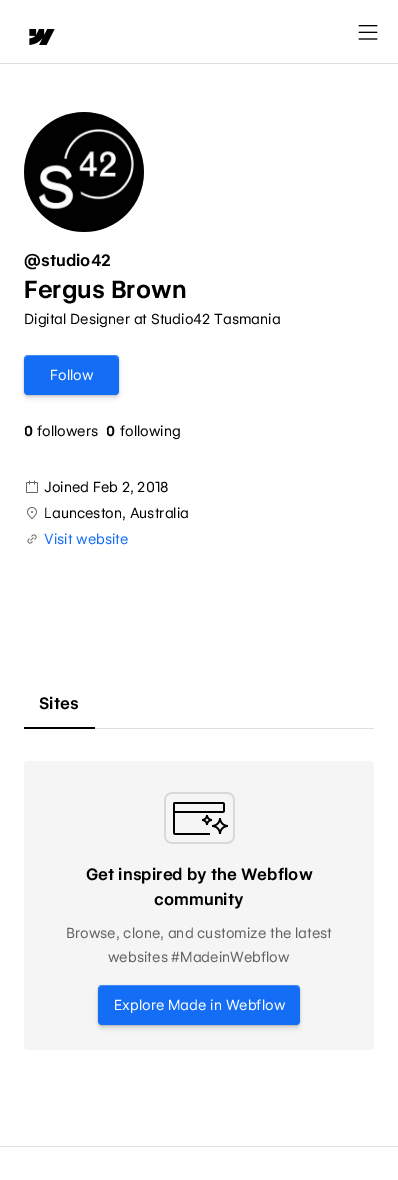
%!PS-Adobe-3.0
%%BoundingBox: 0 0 398 1180
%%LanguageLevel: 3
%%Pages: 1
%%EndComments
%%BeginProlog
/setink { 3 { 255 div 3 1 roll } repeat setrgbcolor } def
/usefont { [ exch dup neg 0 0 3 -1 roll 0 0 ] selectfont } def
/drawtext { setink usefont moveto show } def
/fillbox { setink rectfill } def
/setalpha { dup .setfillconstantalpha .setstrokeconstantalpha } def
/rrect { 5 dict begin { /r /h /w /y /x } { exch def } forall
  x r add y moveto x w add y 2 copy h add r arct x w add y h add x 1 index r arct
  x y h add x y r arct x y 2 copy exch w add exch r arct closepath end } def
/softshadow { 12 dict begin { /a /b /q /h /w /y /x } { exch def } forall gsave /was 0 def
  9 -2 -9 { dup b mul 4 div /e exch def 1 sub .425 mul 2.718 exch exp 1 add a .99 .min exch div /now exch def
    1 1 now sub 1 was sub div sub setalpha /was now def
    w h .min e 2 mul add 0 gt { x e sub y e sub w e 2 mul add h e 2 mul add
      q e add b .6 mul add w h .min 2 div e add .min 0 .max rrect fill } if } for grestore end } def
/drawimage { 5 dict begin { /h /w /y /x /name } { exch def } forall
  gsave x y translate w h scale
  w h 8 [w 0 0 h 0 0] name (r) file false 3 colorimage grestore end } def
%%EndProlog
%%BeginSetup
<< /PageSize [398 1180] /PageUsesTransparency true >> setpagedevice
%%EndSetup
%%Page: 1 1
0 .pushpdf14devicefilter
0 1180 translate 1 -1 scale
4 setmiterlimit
0 0 398 1180 255 255 255 fillbox
0 63 398 1 224 224 224 fillbox
(assets/img1.rgb) 29 29 26 16 drawimage
(assets/img2.rgb) 358 25 20 15 drawimage
(assets/img3.rgb) 24 112 120 120 drawimage
(@studio42) 24 266 /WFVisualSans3-SemiBold 16 0 0 0 drawtext
(Fergus Brown) 24 298 /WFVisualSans-SemiBold 24 0 0 0 drawtext
(Digital Designer at Studio42 Tasmania) 24 324 /WFVisualSans-Regular 14 0 0 0 drawtext
8 8 8 setink
24 359 95 40 4 2 0.08 softshadow
24 356 95 40 4 1 0.2 softshadow
20 110 245 setink
24 355 95 40 4 rrect fill
0.2 setalpha
255 255 255 setink
28 356 moveto 115 356 lineto 117 356 119 358 119 360 curveto 119 351 105 355 100 355 curveto 42 355 lineto 38 355 24 351 24 360 curveto 24 358 26 356 28 356 curveto closepath fill
1 setalpha
(Follow) 50 380 /WFVisualSans-Regular 14 255 255 255 drawtext
(0) 24 436 /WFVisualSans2-SemiBold 14 0 0 0 drawtext
(followers) 37 436 /WFVisualSans-Regular 14 0 0 0 drawtext
(0) 106 436 /WFVisualSans2-SemiBold 14 0 0 0 drawtext
(following) 120 436 /WFVisualSans-Regular 14 0 0 0 drawtext
(assets/img4.rgb) 26 480 12 13 drawimage
(Joined Feb 2, 2018) 44 492 /WFVisualSans-Regular 14 0 0 0 drawtext
(assets/img5.rgb) 27 507 10 13 drawimage
(Launceston, Australia) 44 518 /WFVisualSans-Regular 14 0 0 0 drawtext
(assets/img6.rgb) 27 534 10 10 drawimage
(Visit website) 44 544 /WFVisualSans-Regular 14 20 110 245 drawtext
(Sites) 39 709 /WFVisualSans3-SemiBold 16 0 0 0 drawtext
24 727 71 2 0 0 0 fillbox
95 728 279 1 224 224 224 fillbox
245 245 245 setink
24 761 350 289 4 rrect fill
(assets/img7.rgb) 164 792 71 52 drawimage
(Get inspired by the Webflow) 86 880 /WFVisualSans3-SemiBold 16 0 0 0 drawtext
(community) 154 905 /WFVisualSans3-SemiBold 16 0 0 0 drawtext
(Browse, clone, and customize the latest) 66 938 /WFVisualSans-Regular 14 98 98 98 drawtext
(websites #MadeinWebflow) 108 962 /WFVisualSans-Regular 14 98 98 98 drawtext
8 8 8 setink
98 989 202 40 4 2 0.08 softshadow
98 986 202 40 4 1 0.2 softshadow
20 110 245 setink
98 985 202 40 4 rrect fill
0.2 setalpha
255 255 255 setink
102 986 moveto 296 986 lineto 298 986 300 988 300 990 curveto 300 989 lineto 300 987 298 985 296 985 curveto 102 985 lineto 100 985 98 987 98 989 curveto 98 990 lineto 98 988 100 986 102 986 curveto closepath fill
1 setalpha
(Explore Made in Webflow) 114 1010 /WFVisualSans-Regular 14 255 255 255 drawtext
0 1146 398 1 224 224 224 fillbox
.poppdf14devicefilter showpage
%%EOF
